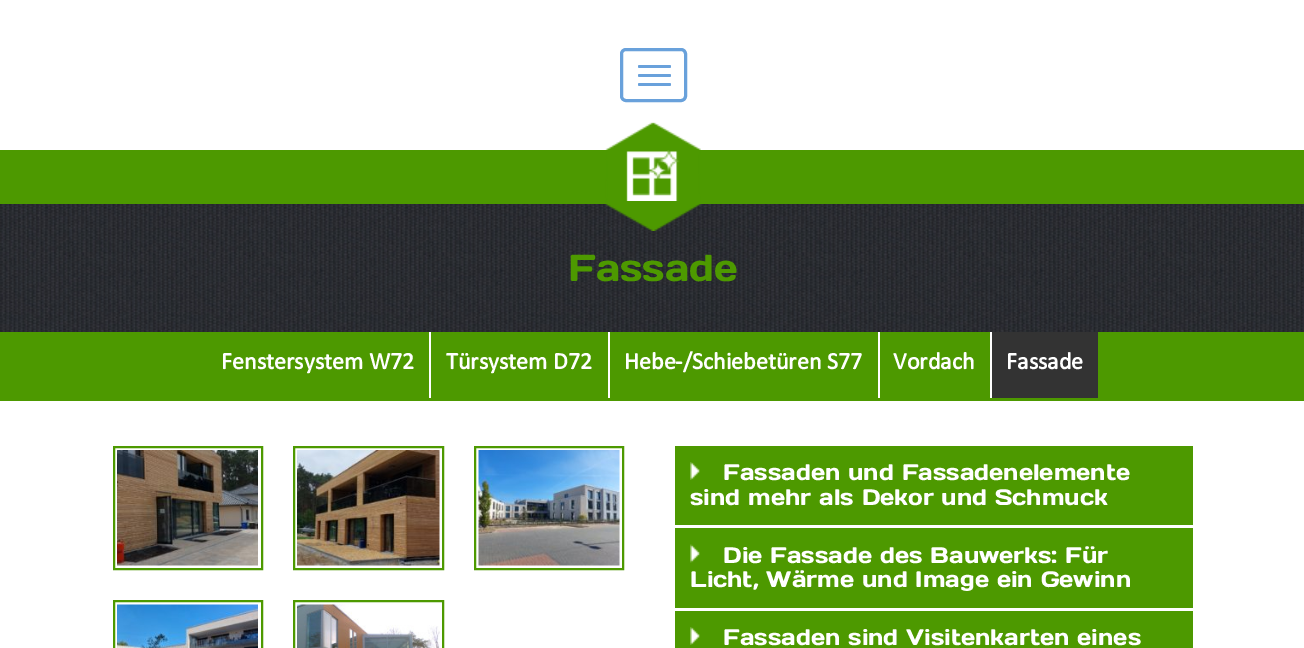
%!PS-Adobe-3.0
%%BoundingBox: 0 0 1304 648
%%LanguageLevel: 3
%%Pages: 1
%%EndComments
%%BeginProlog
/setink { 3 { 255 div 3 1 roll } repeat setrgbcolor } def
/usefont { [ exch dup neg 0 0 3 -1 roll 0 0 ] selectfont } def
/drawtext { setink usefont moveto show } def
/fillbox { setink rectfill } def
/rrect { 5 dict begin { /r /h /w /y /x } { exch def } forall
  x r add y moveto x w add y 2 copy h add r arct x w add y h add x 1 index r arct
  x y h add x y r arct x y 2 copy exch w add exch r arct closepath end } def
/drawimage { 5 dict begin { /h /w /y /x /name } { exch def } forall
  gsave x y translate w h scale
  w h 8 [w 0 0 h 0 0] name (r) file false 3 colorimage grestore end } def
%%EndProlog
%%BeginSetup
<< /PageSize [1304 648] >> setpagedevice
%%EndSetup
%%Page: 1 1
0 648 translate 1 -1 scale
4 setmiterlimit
0 0 1304 648 255 255 255 fillbox
(assets/img1.rgb) 0 204 1304 128 drawimage
105 161 219 setink
3 setlinewidth
621.5 49.5 64 51 4.5 rrect stroke
638 65 33 3 1.5 rrect fill
638 74 33 3 1.5 rrect fill
638 83 33 3 1.5 rrect fill
0 150 1304 54 77 153 0 fillbox
(assets/img2.rgb) 605 122 96 109 drawimage
(assets/img3.rgb) 626 150 54 51 drawimage
(Fassade) 568 281 /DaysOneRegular-Regular 37.5 77 153 0 drawtext
0 332 1304 69 77 153 0 fillbox
429 332 2 66 255 255 255 fillbox
(Fenstersystem W72) 221 369 /Calibri-Bold 24 255 255 255 drawtext
608 332 2 66 255 255 255 fillbox
(Türsystem D72) 446 369 /Calibri-Bold 24 255 255 255 drawtext
878 332 2 66 255 255 255 fillbox
(Hebe-/Schiebetüren S77) 624 369 /Calibri-Bold 24 255 255 255 drawtext
990 332 2 66 255 255 255 fillbox
(Vordach) 893 369 /Calibri-Bold 24 255 255 255 drawtext
992 332 106 66 51 51 51 fillbox
(Fassade) 1006 369 /Calibri-Bold 24 255 255 255 drawtext
77 153 0 setink
2 setlinewidth
114 447 148 122 rectstroke
(assets/img4.rgb) 117 450 141 116 drawimage
294 447 149 122 rectstroke
(assets/img5.rgb) 297 450 143 116 drawimage
475 447 148 122 rectstroke
(assets/img6.rgb) 478 450 142 116 drawimage
114 601 148 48 rectstroke
(assets/img7.rgb) 117 604 141 44 drawimage
294 601 149 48 rectstroke
(assets/img8.rgb) 297 604 143 44 drawimage
675 446 518 79 77 153 0 fillbox
(assets/img9.rgb) 690 462 10 18 drawimage
(Fassaden und Fassadenelemente) 723 480 /DaysOneRegular-Regular 22.5 255 255 255 drawtext
(sind mehr als Dekor und Schmuck) 690 505 /DaysOneRegular-Regular 22.5 255 255 255 drawtext
675 528 518 80 77 153 0 fillbox
(assets/img10.rgb) 690 544 10 19 drawimage
(Die Fassade des Bauwerks: Für) 723 563 /DaysOneRegular-Regular 22.5 255 255 255 drawtext
(Licht, Wärme und Image ein Gewinn) 690 587 /DaysOneRegular-Regular 22.5 255 255 255 drawtext
675 611 518 37 77 153 0 fillbox
(assets/img9.rgb) 690 627 10 18 drawimage
(Fassaden sind Visitenkarten eines) 723 645 /DaysOneRegular-Regular 22.5 255 255 255 drawtext
showpage
%%EOF
